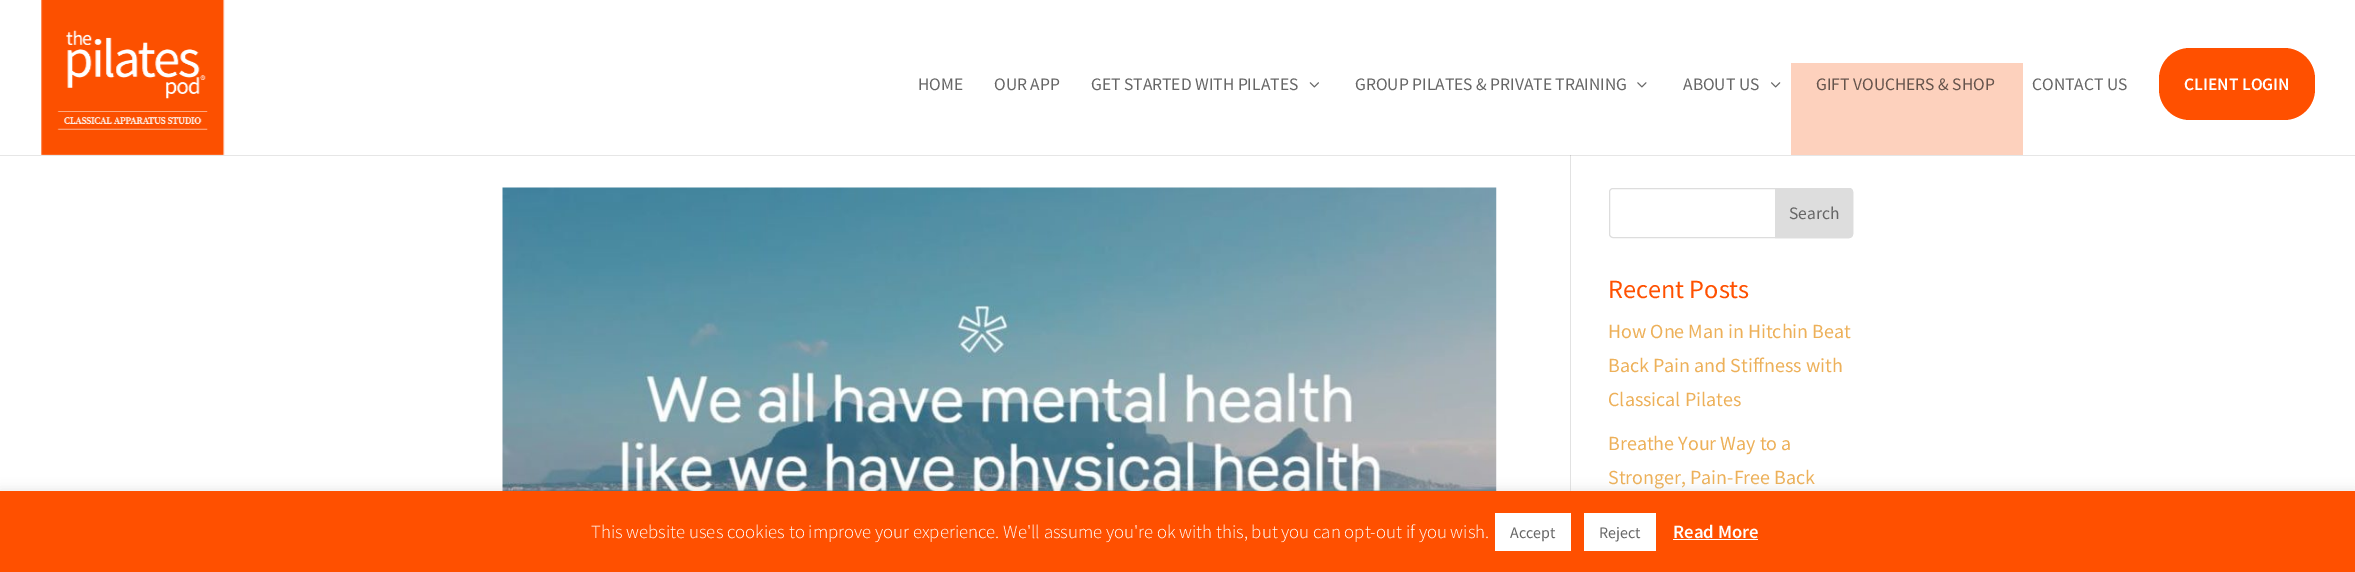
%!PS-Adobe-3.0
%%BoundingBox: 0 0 2355 572
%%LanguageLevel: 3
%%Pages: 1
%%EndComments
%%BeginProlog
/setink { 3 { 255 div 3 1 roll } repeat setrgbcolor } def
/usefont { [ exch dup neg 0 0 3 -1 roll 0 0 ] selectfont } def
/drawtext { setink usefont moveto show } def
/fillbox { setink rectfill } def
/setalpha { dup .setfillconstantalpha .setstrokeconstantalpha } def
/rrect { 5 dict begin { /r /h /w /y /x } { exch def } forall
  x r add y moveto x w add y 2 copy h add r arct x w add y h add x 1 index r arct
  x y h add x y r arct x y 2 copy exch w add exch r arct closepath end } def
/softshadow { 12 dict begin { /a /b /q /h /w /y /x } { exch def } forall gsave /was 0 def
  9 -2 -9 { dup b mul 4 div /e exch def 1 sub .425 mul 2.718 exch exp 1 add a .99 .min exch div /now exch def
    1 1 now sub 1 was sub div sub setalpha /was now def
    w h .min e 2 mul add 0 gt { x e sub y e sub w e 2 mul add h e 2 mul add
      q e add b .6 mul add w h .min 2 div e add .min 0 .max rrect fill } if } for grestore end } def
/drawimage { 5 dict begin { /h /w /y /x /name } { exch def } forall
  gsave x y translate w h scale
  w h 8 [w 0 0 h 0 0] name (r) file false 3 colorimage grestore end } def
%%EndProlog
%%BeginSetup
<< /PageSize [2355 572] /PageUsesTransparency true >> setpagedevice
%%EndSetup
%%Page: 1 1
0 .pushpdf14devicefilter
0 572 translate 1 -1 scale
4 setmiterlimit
0 0 2355 572 255 255 255 fillbox
0 155 2355 1 230 230 230 fillbox
(assets/img1.rgb) 41 0 184 155 drawimage
(HOME) 918 90 /SourceSansPro-Regular 17.5 102 102 102 drawtext
(OUR APP) 994 90 /SourceSansPro-Regular 17.5 102 102 102 drawtext
(GET STARTED WITH PILATES) 1091 90 /SourceSansPro-Regular 17.5 102 102 102 drawtext
(assets/img2.rgb) 1309 82 10 6 drawimage
(GROUP PILATES & PRIVATE TRAINING) 1355 90 /SourceSansPro-Regular 17.5 102 102 102 drawtext
(assets/img3.rgb) 1637 82 10 6 drawimage
(ABOUT US) 1683 90 /SourceSansPro-Regular 17.5 102 102 102 drawtext
(assets/img4.rgb) 1771 82 10 6 drawimage
1791 63 232 92 253 209 189 fillbox
(GIFT VOUCHERS & SHOP) 1816 90 /SourceSansPro-Regular 17.5 101 84 76 drawtext
(CONTACT US) 2032 90 /SourceSansPro-Regular 17.5 102 102 102 drawtext
255 80 0 setink
2159 48 156 72 31 rrect fill
(CLIENT LOGIN) 2184 90 /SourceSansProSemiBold-SemiBold 17.5 255 255 255 drawtext
1570 156 1 335 226 226 226 fillbox
1570 155 1 1 203 203 203 fillbox
(assets/img5.rgb) 502 187 995 304 drawimage
221 221 221 setink
1609.5 188.5 243 49 3.5 rrect stroke
1775.5 188.5 moveto 1849 188.5 lineto 1851 188.5 1852.5 190 1852.5 192 curveto 1852.5 234 lineto 1852.5 236 1851 237.5 1849 237.5 curveto 1775.5 237.5 lineto closepath gsave fill grestore
stroke
(Search) 1789 219 /SourceSansPro-Regular 17.5 102 102 102 drawtext
(Recent Posts) 1608 298 /SourceSansPro-Regular 26.25 255 80 0 drawtext
(How One Man in Hitchin Beat) 1608 338 /SourceSansPro-Regular 20 237 176 89 drawtext
(Back Pain and Stiffness with) 1608 372 /SourceSansPro-Regular 20 237 176 89 drawtext
(Classical Pilates) 1608 406 /SourceSansPro-Regular 20 237 176 89 drawtext
(Breathe Your Way to a) 1608 450 /SourceSansPro-Regular 20 237 176 89 drawtext
(Stronger, Pain-Free Back) 1608 484 /SourceSansPro-Regular 20 237 176 89 drawtext
172 171 171 setink
0 490 2355 81 0 6 0.3 softshadow
0 491 2355 81 255 80 0 fillbox
(This website uses cookies to improve your experience. We'll assume you're ok with this, but you can opt-out if you wish.) 591 538 /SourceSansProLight-Light 18.75 255 255 255 drawtext
1495 513 76 38 255 255 255 fillbox
(Accept) 1510 538 /SourceSansPro-Regular 16 102 102 102 drawtext
1584 513 72 38 255 255 255 fillbox
(Reject) 1599 538 /SourceSansPro-Regular 16 102 102 102 drawtext
(Read More) 1673 538 /SourceSansProSemiBold-SemiBold 18.75 255 255 255 drawtext
1673 539 85 1 255 255 255 fillbox
.poppdf14devicefilter showpage
%%EOF
